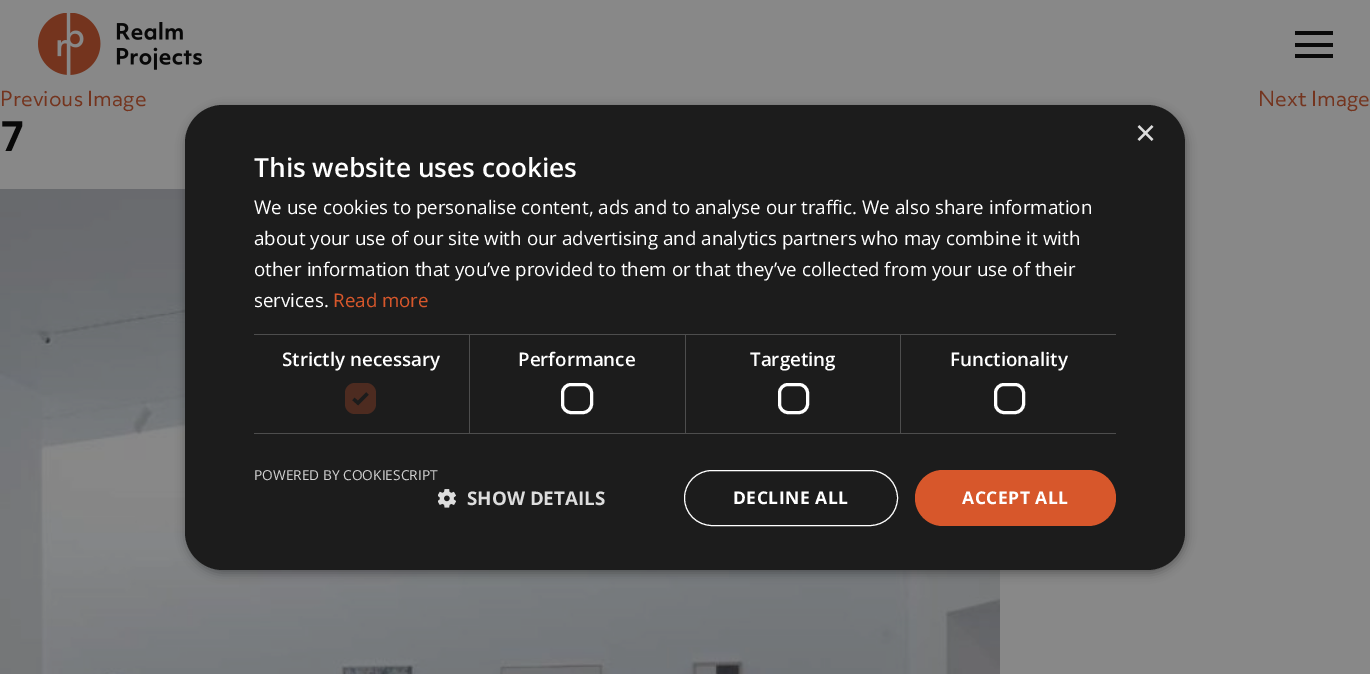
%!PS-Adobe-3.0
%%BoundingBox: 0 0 1370 674
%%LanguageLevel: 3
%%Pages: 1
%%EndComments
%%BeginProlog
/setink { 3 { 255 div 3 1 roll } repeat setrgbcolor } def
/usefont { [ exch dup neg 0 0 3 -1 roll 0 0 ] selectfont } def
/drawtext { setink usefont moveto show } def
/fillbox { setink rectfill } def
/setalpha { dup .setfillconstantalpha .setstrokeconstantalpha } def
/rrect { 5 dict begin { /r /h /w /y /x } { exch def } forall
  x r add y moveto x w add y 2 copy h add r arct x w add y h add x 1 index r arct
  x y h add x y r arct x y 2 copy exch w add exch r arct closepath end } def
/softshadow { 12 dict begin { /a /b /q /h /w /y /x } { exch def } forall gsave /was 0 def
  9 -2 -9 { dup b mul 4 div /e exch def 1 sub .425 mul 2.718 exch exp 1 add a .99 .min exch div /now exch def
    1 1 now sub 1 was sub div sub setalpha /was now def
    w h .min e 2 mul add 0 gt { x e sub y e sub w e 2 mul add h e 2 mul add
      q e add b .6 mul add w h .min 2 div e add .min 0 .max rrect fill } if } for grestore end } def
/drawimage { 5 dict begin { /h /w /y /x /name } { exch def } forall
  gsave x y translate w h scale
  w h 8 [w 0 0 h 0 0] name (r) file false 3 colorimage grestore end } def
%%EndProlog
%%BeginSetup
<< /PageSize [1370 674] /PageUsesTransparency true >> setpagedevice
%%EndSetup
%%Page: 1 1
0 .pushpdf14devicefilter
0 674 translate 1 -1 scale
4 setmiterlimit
0 0 1370 674 136 136 136 fillbox
(assets/img1.rgb) 38 13 164 62 drawimage
1295 31 38 4 9 9 9 fillbox
1295 43 38 4 9 9 9 fillbox
1295 54 38 4 9 9 9 fillbox
(Previous Image) 0 106 /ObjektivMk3-Regular 20 116 52 30 drawtext
(Next Image) 1258 106 /ObjektivMk3-Regular 20 116 52 30 drawtext
(7) 0 151 /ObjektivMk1-Bold 40 9 9 9 drawtext
(assets/img2.rgb) 0 189 1000 485 drawimage
0 0 0 setink
186 108 1000 465 38 5 0.35 softshadow
28 28 28 setink
185 105 1000 465 38 rrect fill
(×) 1135 145 /LiberationSans-Regular 36 221 221 221 drawtext
(This website uses cookies) 254 177 /OpenSans-SemiBold 26.25 255 255 255 drawtext
(We use cookies to personalise content, ads and to analyse our traffic. We also share information) 254 214 /OpenSans-Regular 18.75 255 255 255 drawtext
(about your use of our site with our advertising and analytics partners who may combine it with) 254 245 /OpenSans-Regular 18.75 255 255 255 drawtext
(other information that you’ve provided to them or that they’ve collected from your use of their) 254 276 /OpenSans-Regular 18.75 255 255 255 drawtext
(services.) 254 307 /OpenSans-Regular 18.75 255 255 255 drawtext
(Read more) 333 307 /OpenSans-Regular 18.75 215 87 43 drawtext
254 334 862 1 77 77 77 fillbox
469 334 1 100 77 77 77 fillbox
254 433 216 1 77 77 77 fillbox
(Strictly necessary) 282 366 /OpenSans-SemiBold 18.75 255 255 255 drawtext
77 43 32 setink
345 383 31 31 10 rrect fill
28 28 28 setink
3.3 setlinewidth
353.5 399 moveto 358 403 lineto 367.5 393.5 lineto stroke
685 334 1 100 77 77 77 fillbox
470 433 216 1 77 77 77 fillbox
(Performance) 518 366 /OpenSans-SemiBold 18.75 255 255 255 drawtext
3 setlinewidth
562.5 384.5 29 28 8.5 rrect stroke
900 334 1 100 77 77 77 fillbox
686 433 430 1 77 77 77 fillbox
(Targeting) 750 366 /OpenSans-SemiBold 18.75 255 255 255 drawtext
779.5 384.5 28 28 8.5 rrect stroke
(Functionality) 950 366 /OpenSans-SemiBold 18.75 255 255 255 drawtext
995.5 384.5 28 28 8.5 rrect stroke
(POWERED BY COOKIESCRIPT) 254 480 /OpenSans-Regular 13.75 210 210 210 drawtext
(assets/img3.rgb) 438 489 18 19 drawimage
(SHOW DETAILS) 467 505 /OpenSans-Bold 18.75 221 221 221 drawtext
255 255 255 setink
1 setlinewidth
684.5 470.5 213 55 27.5 rrect stroke
/OpenSans-Bold 17.5 usefont
733 504 moveto 0.5 0 (DECLINE ALL) ashow
215 87 43 setink
915 470 201 56 28 rrect fill
255 255 255 setink
962 504 moveto 0.5 0 (ACCEPT ALL) ashow
.poppdf14devicefilter showpage
%%EOF
